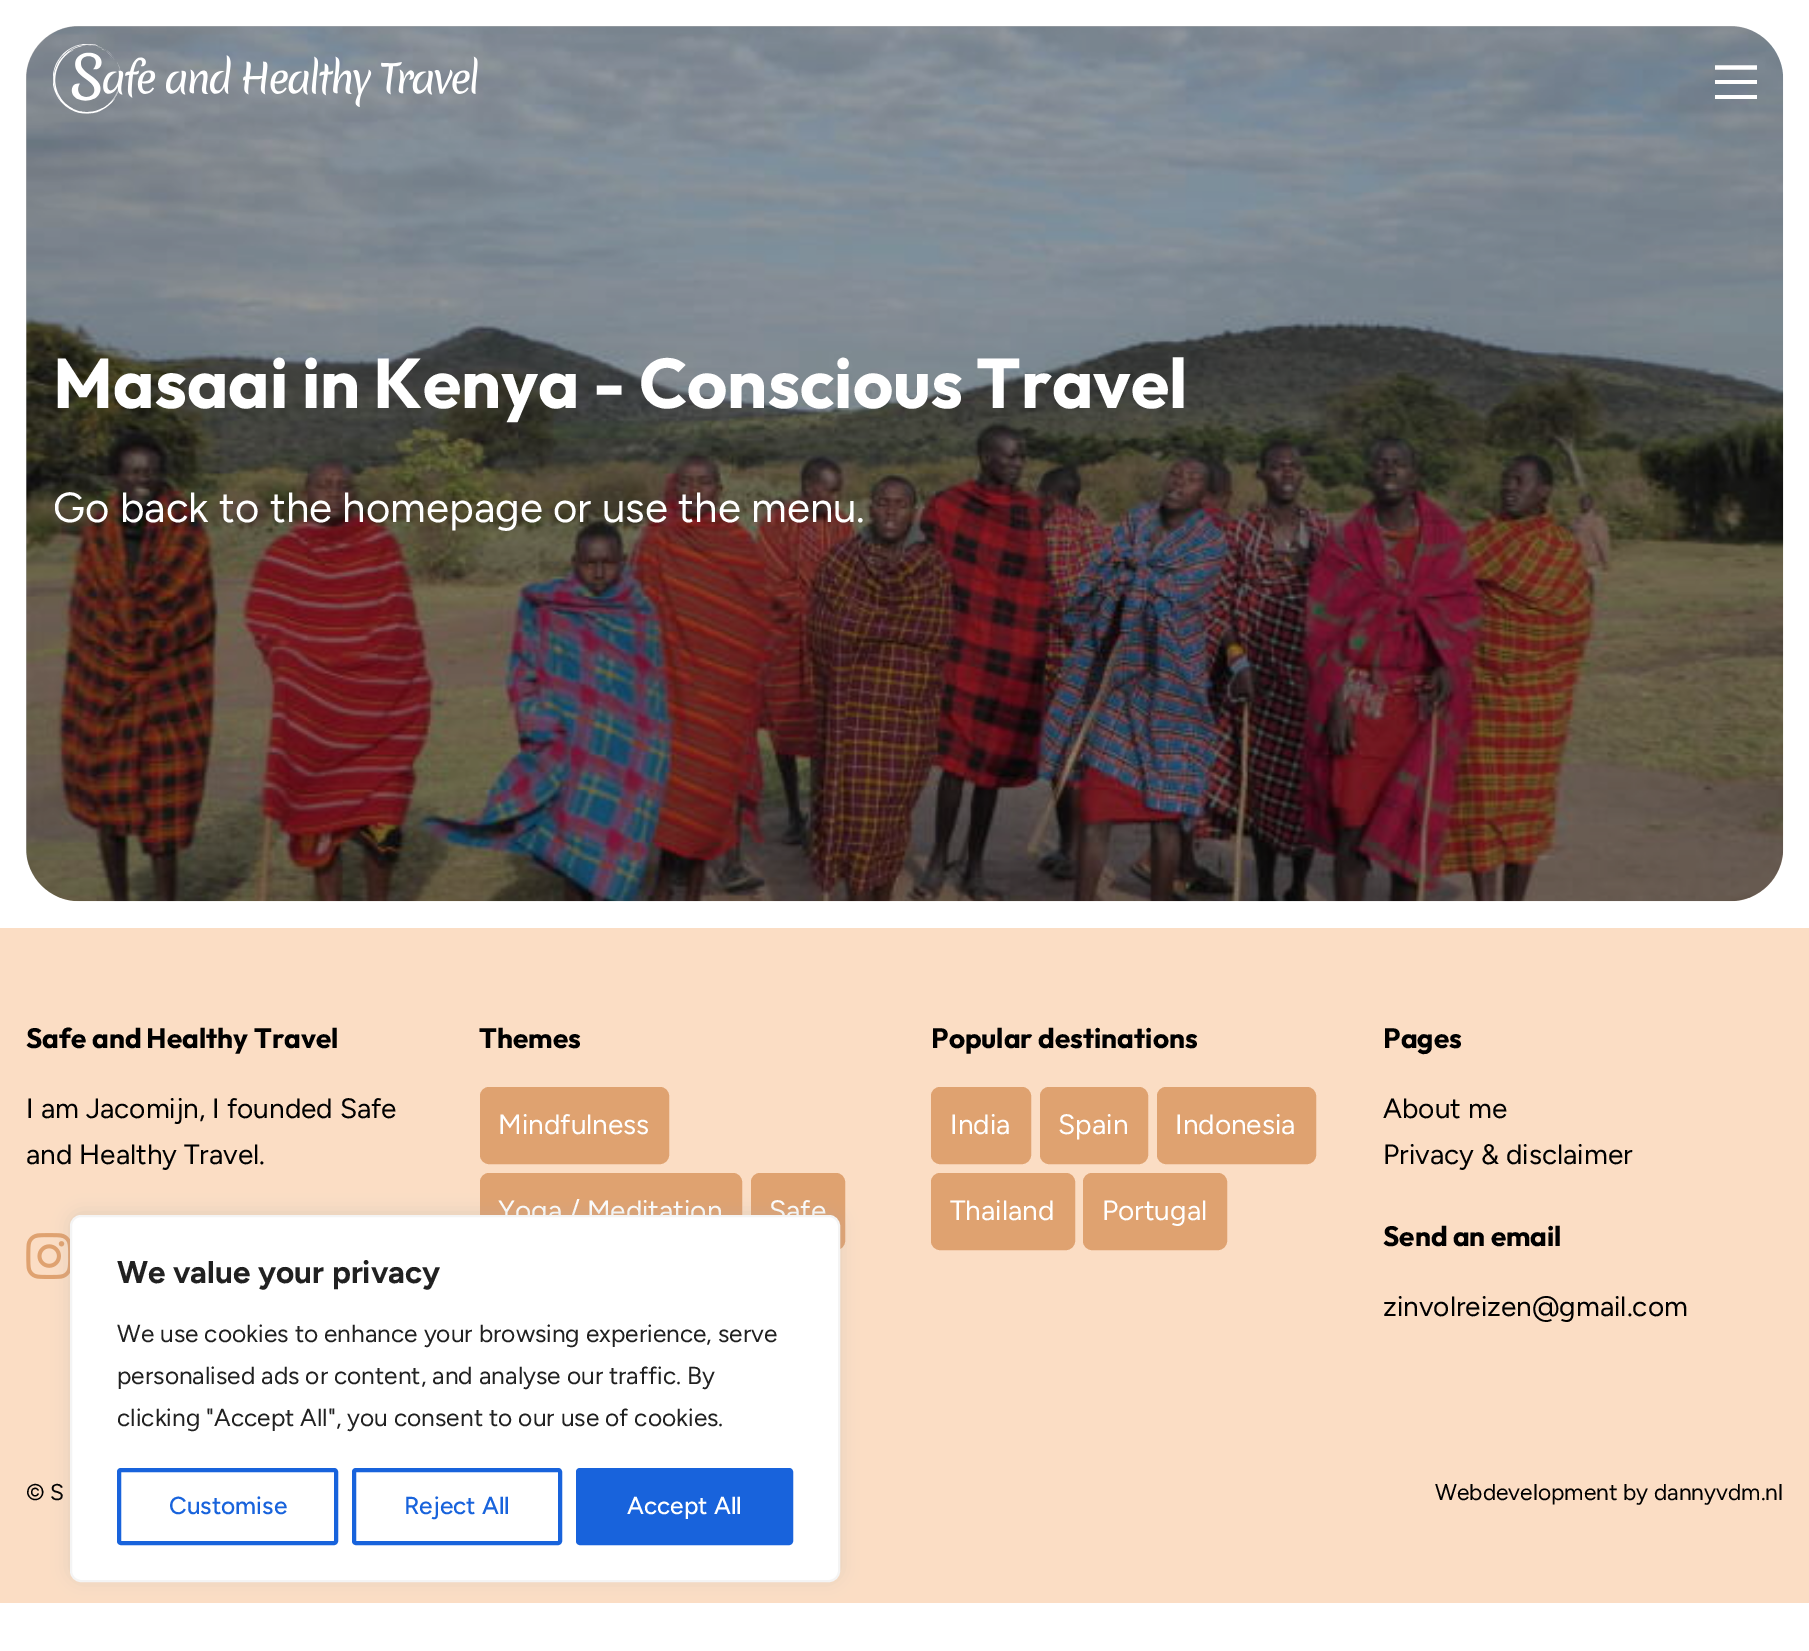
%!PS-Adobe-3.0
%%BoundingBox: 0 0 1809 1651
%%LanguageLevel: 3
%%Pages: 1
%%EndComments
%%BeginProlog
/setink { 3 { 255 div 3 1 roll } repeat setrgbcolor } def
/usefont { [ exch dup neg 0 0 3 -1 roll 0 0 ] selectfont } def
/drawtext { setink usefont moveto show } def
/fillbox { setink rectfill } def
/setalpha { dup .setfillconstantalpha .setstrokeconstantalpha } def
/rrect { 5 dict begin { /r /h /w /y /x } { exch def } forall
  x r add y moveto x w add y 2 copy h add r arct x w add y h add x 1 index r arct
  x y h add x y r arct x y 2 copy exch w add exch r arct closepath end } def
/softshadow { 12 dict begin { /a /b /q /h /w /y /x } { exch def } forall gsave /was 0 def
  9 -2 -9 { dup b mul 4 div /e exch def 1 sub .425 mul 2.718 exch exp 1 add a .99 .min exch div /now exch def
    1 1 now sub 1 was sub div sub setalpha /was now def
    w h .min e 2 mul add 0 gt { x e sub y e sub w e 2 mul add h e 2 mul add
      q e add b .6 mul add w h .min 2 div e add .min 0 .max rrect fill } if } for grestore end } def
/drawimage { 5 dict begin { /h /w /y /x /name } { exch def } forall
  gsave x y translate w h scale
  w h 8 [w 0 0 h 0 0] name (r) file false 3 colorimage grestore end } def
%%EndProlog
%%BeginSetup
<< /PageSize [1809 1651] /PageUsesTransparency true >> setpagedevice
%%EndSetup
%%Page: 1 1
0 .pushpdf14devicefilter
0 1651 translate 1 -1 scale
4 setmiterlimit
0 0 1809 1651 255 255 255 fillbox
(assets/img2.rgb) 26 26 1758 876 drawimage
0.3 setalpha
0 0 0 setink
26 26 1757 875 53 rrect fill
1 setalpha
(assets/img1.rgb) 53 44 425 70 drawimage
255 255 255 setink
4.2 setlinewidth
1715 67.5 moveto 1757 67.5 lineto stroke
1715 80 42 4 255 255 255 fillbox
1715 95 42 4 255 255 255 fillbox
(Masaai in Kenya - Conscious Travel) 53 408 /Outfit-Bold 70 255 255 255 drawtext
(Go back to the homepage or use the menu.) 53 522 /Figtree-Regular 42 255 255 255 drawtext
0 928 1809 675 251 221 196 fillbox
(Safe and Healthy Travel) 26 1048 /Outfit-Bold 28 0 0 0 drawtext
(I am Jacomijn, I founded Safe) 26 1118 /Figtree-Regular 28 0 0 0 drawtext
(and Healthy Travel.) 26 1164 /Figtree-Regular 28 0 0 0 drawtext
(assets/img3.rgb) 26 1233 44 46 drawimage
(Themes) 479 1048 /Outfit-Bold 28 0 0 0 drawtext
223 162 112 setink
481 1088 187 75 8 rrect gsave fill grestore
2 setlinewidth
stroke
(Mindfulness) 498 1134 /Figtree-Regular 28 255 255 255 drawtext
223 162 112 setink
481 1174 260 75 8 rrect gsave fill grestore
stroke
(Yoga / Meditation) 498 1220 /Figtree-Regular 28 255 255 255 drawtext
223 162 112 setink
752 1174 92 75 8 rrect gsave fill grestore
stroke
(Safe) 769 1220 /Figtree-Regular 28 255 255 255 drawtext
(Popular destinations) 931 1048 /Outfit-Bold 28 0 0 0 drawtext
223 162 112 setink
932 1088 98 75 8 rrect gsave fill grestore
stroke
(India) 950 1134 /Figtree-Regular 28 255 255 255 drawtext
223 162 112 setink
1041 1088 106 75 8 rrect gsave fill grestore
stroke
(Spain) 1058 1134 /Figtree-Regular 28 255 255 255 drawtext
223 162 112 setink
1158 1088 157 75 8 rrect gsave fill grestore
stroke
(Indonesia) 1175 1134 /Figtree-Regular 28 255 255 255 drawtext
223 162 112 setink
932 1174 142 75 8 rrect gsave fill grestore
stroke
(Thailand) 950 1220 /Figtree-Regular 28 255 255 255 drawtext
223 162 112 setink
1084 1174 142 75 8 rrect gsave fill grestore
stroke
(Portugal) 1102 1220 /Figtree-Regular 28 255 255 255 drawtext
(Pages) 1383 1048 /Outfit-Bold 28 0 0 0 drawtext
(About me) 1383 1118 /Figtree-Regular 28 0 0 0 drawtext
(Privacy & disclaimer) 1383 1164 /Figtree-Regular 28 0 0 0 drawtext
(Send an email) 1383 1246 /Outfit-Bold 28 0 0 0 drawtext
(zinvolreizen@gmail.com) 1383 1316 /Figtree-Regular 28 0 0 0 drawtext
(© S) 26 1500 /Figtree-Regular 22.75 0 0 0 drawtext
(Webdevelopment by dannyvdm.nl) 1435 1500 /Figtree-Regular 22.75 0 0 0 drawtext
172 171 171 setink
70 1213 770 367 11 9 0.3 softshadow
255 255 255 setink
71 1216 768 365 10 rrect gsave fill grestore
244 244 244 setink
stroke
(We value your privacy) 117 1283 /Figtree-Bold 31.5 33 33 33 drawtext
(We use cookies to enhance your browsing experience, serve) 117 1342 /Figtree-Regular 24.5 33 33 33 drawtext
(personalised ads or content, and analyse our traffic. By) 117 1384 /Figtree-Regular 24.5 33 33 33 drawtext
(clicking "Accept All", you consent to our use of cookies.) 117 1426 /Figtree-Regular 24.5 33 33 33 drawtext
24 99 220 setink
4 setlinewidth
119 1470 217 73 2 rrect stroke
(Customise) 169 1514 /Figtree-Medium 24.5 24 99 220 drawtext
354 1470 206 73 2 rrect stroke
(Reject All) 404 1514 /Figtree-Medium 24.5 24 99 220 drawtext
578 1470 213 73 2 rrect gsave fill grestore
stroke
(Accept All) 627 1514 /Figtree-Medium 24.5 255 255 255 drawtext
.poppdf14devicefilter showpage
%%EOF
